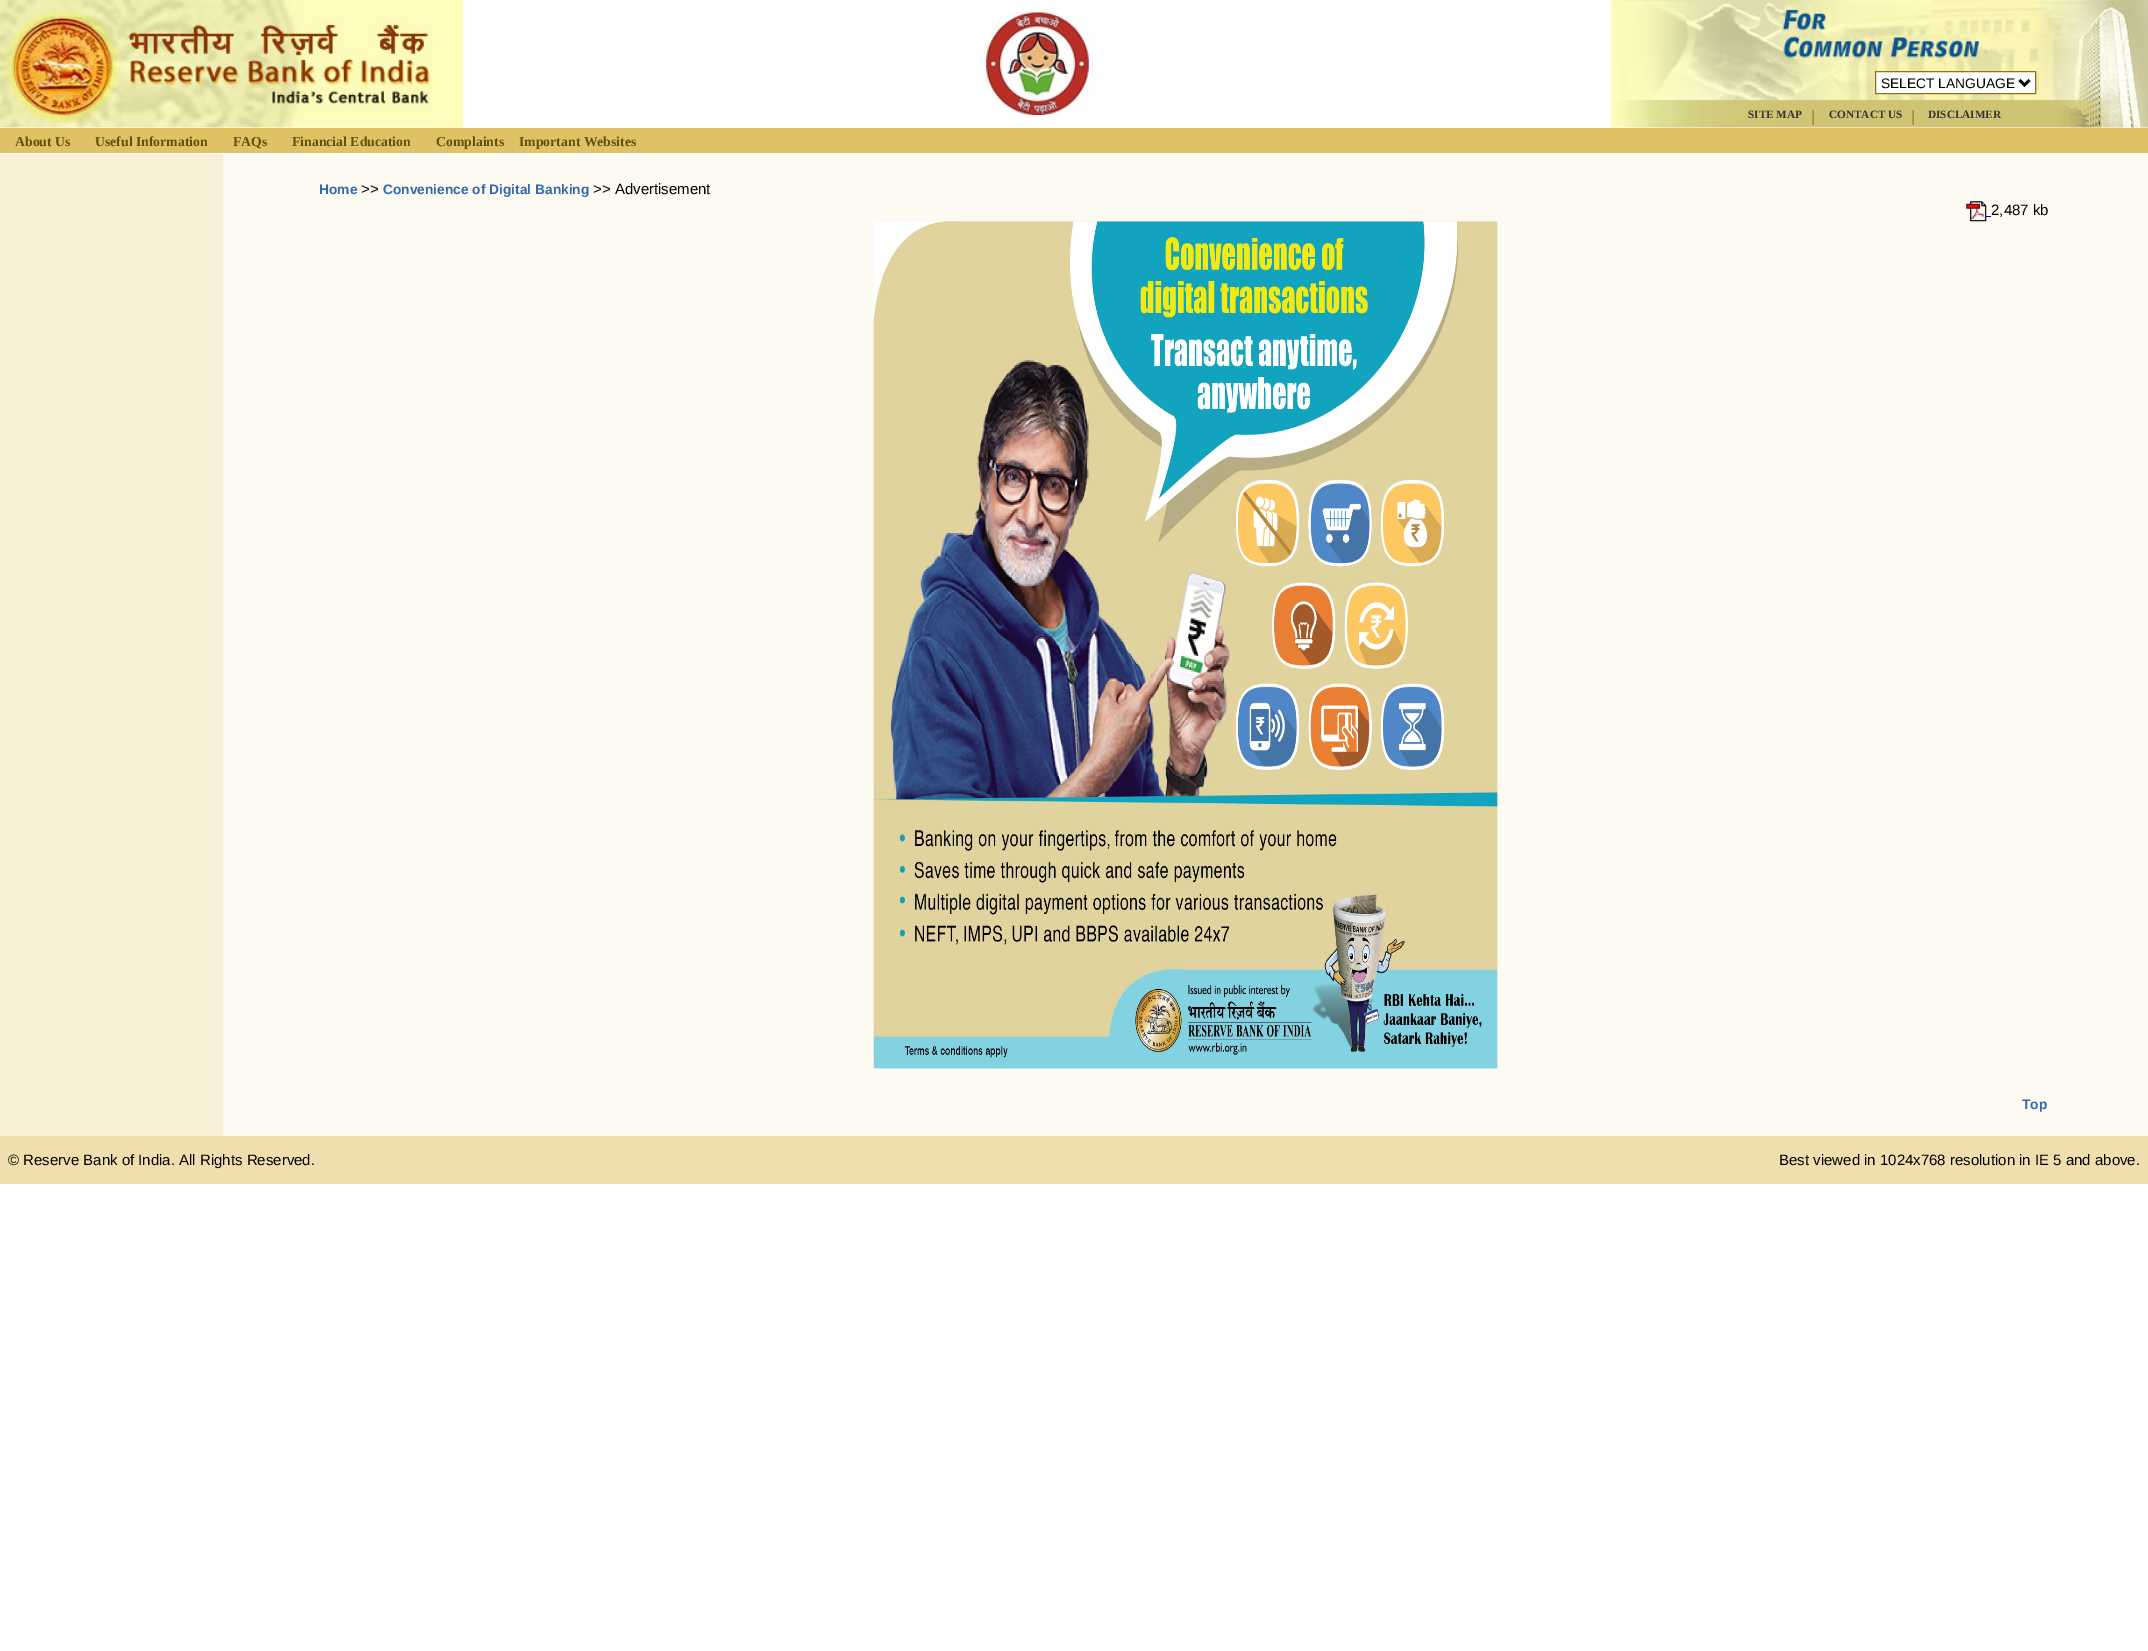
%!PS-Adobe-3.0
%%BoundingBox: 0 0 2148 1651
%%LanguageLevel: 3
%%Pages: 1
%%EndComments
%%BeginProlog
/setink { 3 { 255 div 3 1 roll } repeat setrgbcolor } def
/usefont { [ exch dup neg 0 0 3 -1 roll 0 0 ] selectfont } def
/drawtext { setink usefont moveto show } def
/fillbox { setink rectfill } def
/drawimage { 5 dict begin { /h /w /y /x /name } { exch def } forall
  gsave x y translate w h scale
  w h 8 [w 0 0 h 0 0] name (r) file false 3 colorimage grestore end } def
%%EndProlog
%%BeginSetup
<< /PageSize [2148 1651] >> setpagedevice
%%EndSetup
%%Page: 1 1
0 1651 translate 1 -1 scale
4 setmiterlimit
0 0 2148 1651 255 255 255 fillbox
(assets/img1.rgb) 0 0 435 128 drawimage
435 0 28 128 253 252 187 fillbox
(assets/img2.rgb) 986 12 103 103 drawimage
(assets/img3.rgb) 1611 0 537 128 drawimage
255 255 255 setink
1875.5 71.5 moveto 2035.5 71.5 lineto 2035.5 93.5 lineto 1875.5 93.5 lineto closepath gsave fill grestore
146 115 22 setink
stroke
0 0 0 setink
2.5 setlinewidth
2019.5 80 moveto 2024.5 85 lineto 2029.5 80 lineto stroke
(SELECT LANGUAGE) 1881 88 /LiberationSans-Regular 13.75 0 0 0 drawtext
(SITE MAP) 1748 118 /LiberationSerif-Bold 11.25 51 51 51 drawtext
(assets/img4.rgb) 1812 110 2 15 drawimage
(CONTACT US) 1829 118 /LiberationSerif-Bold 11.25 51 51 51 drawtext
(assets/img4.rgb) 1912 110 2 15 drawimage
(DISCLAIMER) 1928 118 /LiberationSerif-Bold 11.25 51 51 51 drawtext
0 128 2148 25 224 194 101 fillbox
(About Us) 15 146 /LiberationSerif-Bold 13.75 99 80 12 drawtext
(Useful Information) 95 146 /LiberationSerif-Bold 13.75 99 80 12 drawtext
(FAQs) 233 146 /LiberationSerif-Bold 13.75 99 80 12 drawtext
(Financial Education) 292 146 /LiberationSerif-Bold 13.75 99 80 12 drawtext
(Complaints) 436 146 /LiberationSerif-Bold 13.75 99 80 12 drawtext
(Important Websites) 519 146 /LiberationSerif-Bold 13.75 99 80 12 drawtext
223 154 1925 982 253 250 242 fillbox
0 154 223 982 248 239 214 fillbox
(Home) 319 194 /LiberationSans-Bold 13.75 47 105 176 drawtext
(>>) 361 194 /LiberationSans-Regular 15 0 0 0 drawtext
(Convenience of Digital Banking) 383 194 /LiberationSans-Bold 13.75 47 105 176 drawtext
(>> Advertisement) 593 194 /LiberationSans-Regular 15 0 0 0 drawtext
(assets/img5.rgb) 1966 201 21 21 drawimage
1986 216 5 1 0 0 238 fillbox
(2,487 kb) 1991 215 /LiberationSans-Regular 15 0 0 0 drawtext
(assets/img6.rgb) 873 221 625 848 drawimage
(Top) 2022 1109 /LiberationSans-Bold 13.75 47 105 176 drawtext
0 1136 2148 48 239 223 175 fillbox
(© Reserve Bank of India. All Rights Reserved.) 8 1165 /LiberationSans-Regular 15 0 0 0 drawtext
(Best viewed in 1024x768 resolution in IE 5 and above.) 1779 1165 /LiberationSans-Regular 15 0 0 0 drawtext
showpage
%%EOF
